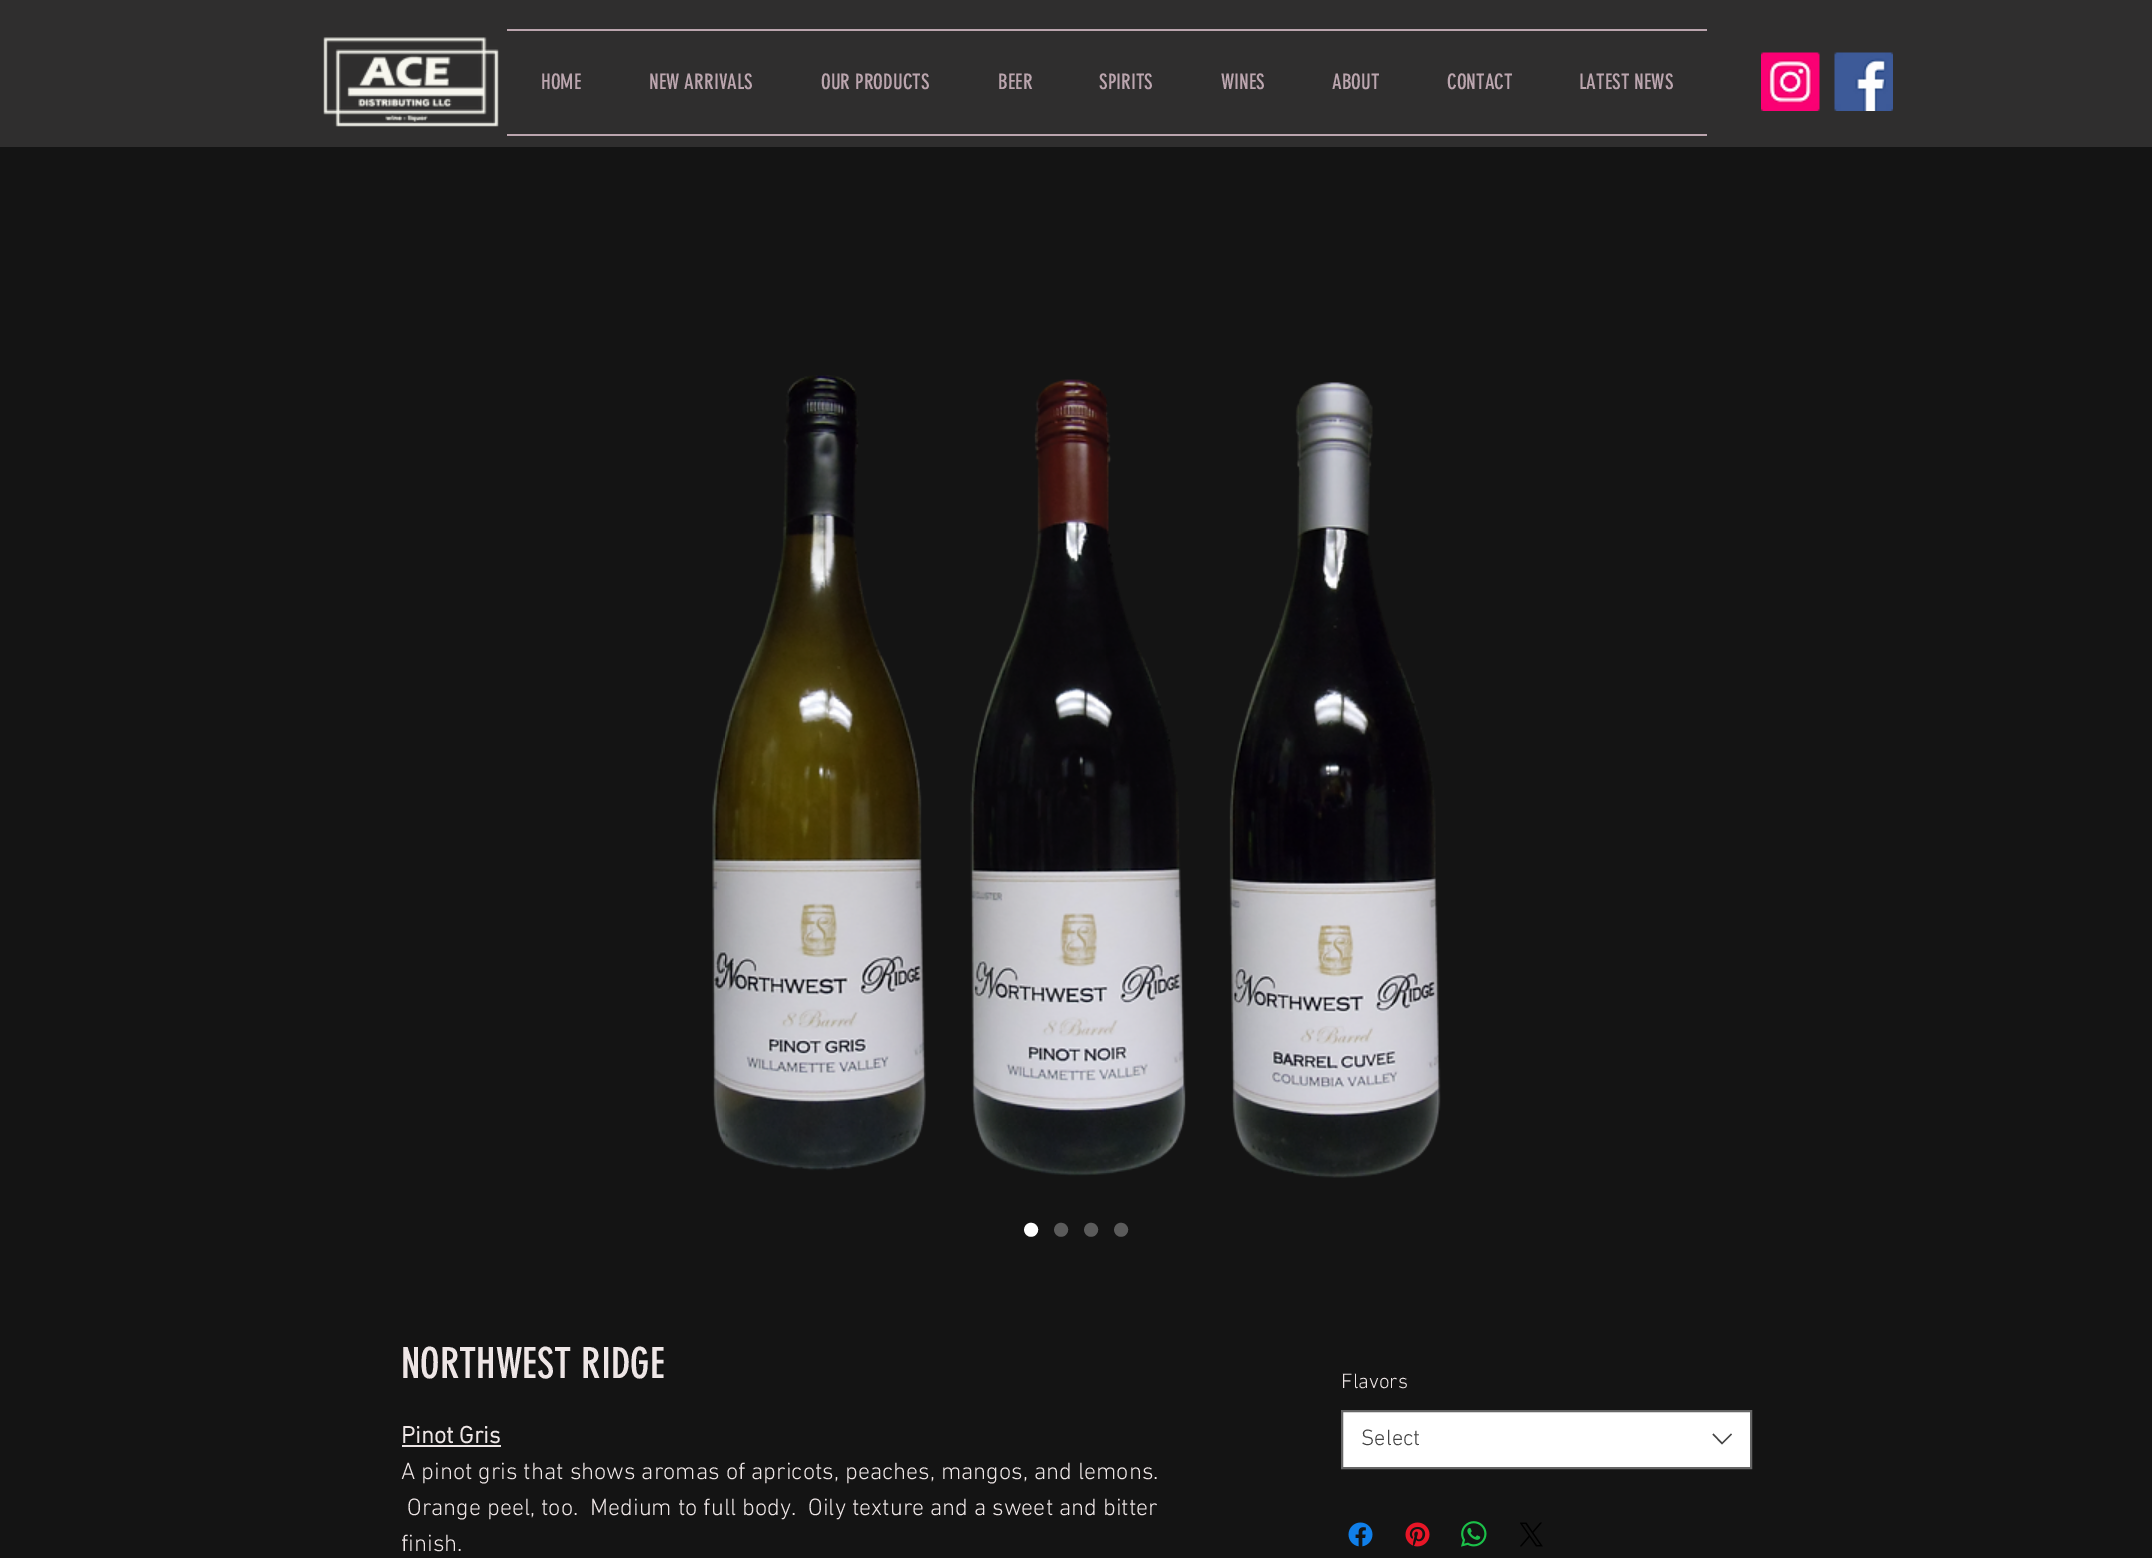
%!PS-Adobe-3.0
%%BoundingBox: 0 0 2152 1558
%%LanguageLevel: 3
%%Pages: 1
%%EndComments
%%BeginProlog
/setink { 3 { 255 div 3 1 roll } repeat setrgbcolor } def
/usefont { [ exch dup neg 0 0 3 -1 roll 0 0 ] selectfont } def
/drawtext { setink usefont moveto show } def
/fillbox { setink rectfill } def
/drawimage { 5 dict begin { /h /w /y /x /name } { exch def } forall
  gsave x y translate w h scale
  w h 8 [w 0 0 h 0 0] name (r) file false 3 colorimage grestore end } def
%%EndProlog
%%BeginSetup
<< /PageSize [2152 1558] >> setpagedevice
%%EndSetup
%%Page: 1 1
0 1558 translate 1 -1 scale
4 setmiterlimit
0 0 2152 1558 20 20 20 fillbox
0 0 2152 147 47 46 46 fillbox
(assets/img1.rgb) 323 37 176 90 drawimage
(assets/img2.rgb) 1761 52 59 59 drawimage
(assets/img3.rgb) 1834 52 59 59 drawimage
507 29 1200 2 187 165 174 fillbox
507 134 1200 2 187 165 174 fillbox
(HOME) 541 89 /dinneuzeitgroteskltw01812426-Regular 21 187 165 174 drawtext
(NEW ARRIVALS) 649 89 /dinneuzeitgroteskltw01812426-Regular 21 187 165 174 drawtext
(OUR PRODUCTS) 821 89 /dinneuzeitgroteskltw01812426-Regular 21 187 165 174 drawtext
(BEER) 998 89 /dinneuzeitgroteskltw01812426-Regular 21 187 165 174 drawtext
(SPIRITS) 1099 89 /dinneuzeitgroteskltw01812426-Regular 21 187 165 174 drawtext
(WINES) 1221 89 /dinneuzeitgroteskltw01812426-Regular 21 187 165 174 drawtext
(ABOUT) 1332 89 /dinneuzeitgroteskltw01812426-Regular 21 187 165 174 drawtext
(CONTACT) 1447 89 /dinneuzeitgroteskltw01812426-Regular 21 187 165 174 drawtext
(LATEST NEWS) 1579 89 /dinneuzeitgroteskltw01812426-Regular 21 187 165 174 drawtext
(assets/img4.rgb) 712 375 729 803 drawimage
(•) 1022 1247 /LiberationSans-Regular 52 255 255 255 drawtext
(•) 1052 1247 /LiberationSans-Regular 52 91 91 91 drawtext
(•) 1082 1247 /LiberationSans-Regular 52 91 91 91 drawtext
(•) 1112 1247 /LiberationSans-Regular 52 91 91 91 drawtext
(NORTHWEST RIDGE) 401 1378 /dinneuzeitgroteskltw01812426-Regular 42 238 230 230 drawtext
(Pinot Gris) 401 1443 /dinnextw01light-Bold 24 238 230 230 drawtext
402 1445 99 2 238 230 230 fillbox
(A pinot gris that shows aromas of apricots, peaches, mangos, and lemons.) 401 1479 /dinnextw01light-Light 24 238 230 230 drawtext
(Orange peel, too.  Medium to full body.  Oily texture and a sweet and bitter) 407 1515 /dinnextw01light-Light 24 238 230 230 drawtext
(finish.) 401 1551 /dinnextw01light-Light 24 238 230 230 drawtext
(Flavors) 1341 1388 /dinnextw01light-Light 21 238 230 230 drawtext
255 255 255 setink
1342 1411 moveto 1751 1411 lineto 1751 1468 lineto 1342 1468 lineto closepath gsave fill grestore
102 102 102 setink
2 setlinewidth
stroke
(Select) 1361 1445 /dinnextw01light-Light 22.5 68 68 68 drawtext
1731 1433.5 moveto 1732 1434.5 lineto 1722 1444.5 lineto 1712.5 1434.5 lineto 1713.5 1433.5 lineto 1722 1442.5 lineto closepath eofill
(assets/img5.rgb) 1348 1522 25 25 drawimage
(assets/img6.rgb) 1405 1522 25 25 drawimage
(assets/img7.rgb) 1461 1521 26 26 drawimage
(assets/img8.rgb) 1520 1522 23 25 drawimage
showpage
%%EOF
